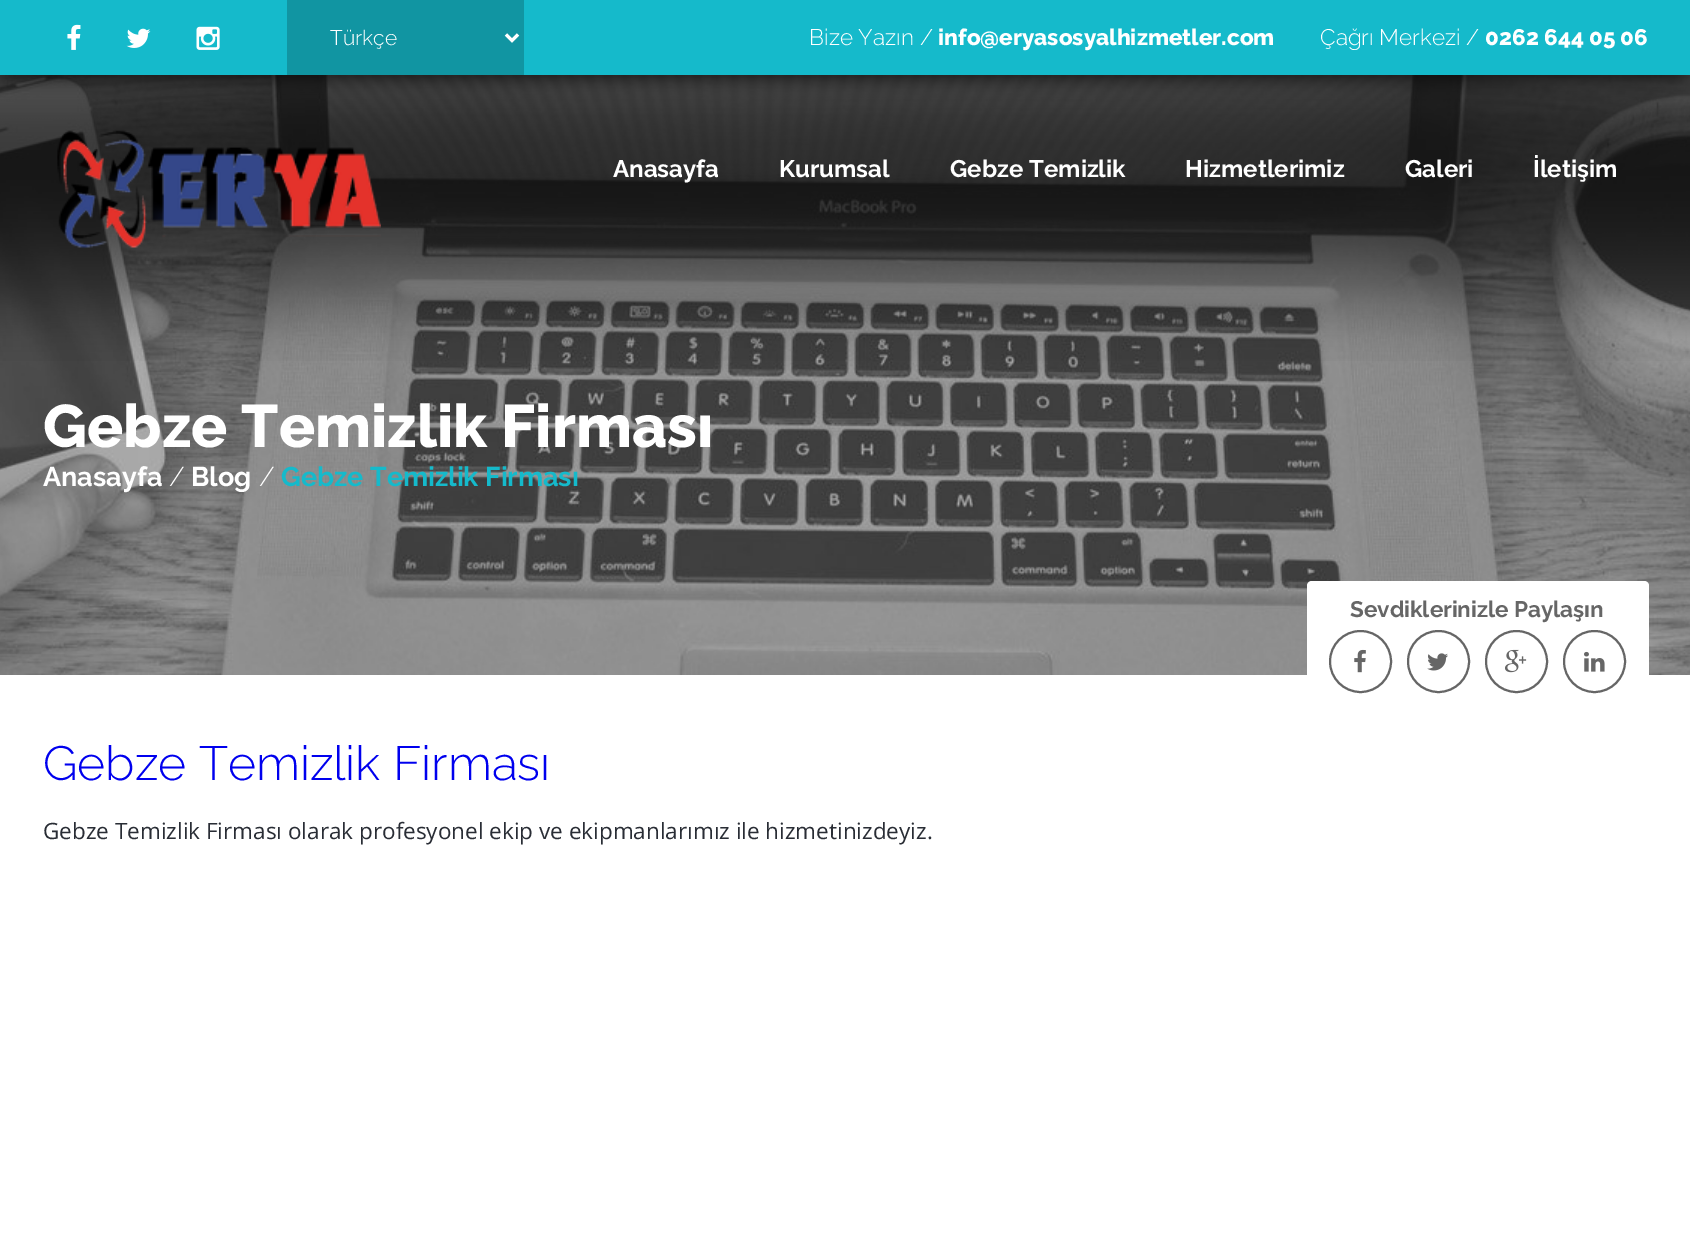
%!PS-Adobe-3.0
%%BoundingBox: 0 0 1690 1248
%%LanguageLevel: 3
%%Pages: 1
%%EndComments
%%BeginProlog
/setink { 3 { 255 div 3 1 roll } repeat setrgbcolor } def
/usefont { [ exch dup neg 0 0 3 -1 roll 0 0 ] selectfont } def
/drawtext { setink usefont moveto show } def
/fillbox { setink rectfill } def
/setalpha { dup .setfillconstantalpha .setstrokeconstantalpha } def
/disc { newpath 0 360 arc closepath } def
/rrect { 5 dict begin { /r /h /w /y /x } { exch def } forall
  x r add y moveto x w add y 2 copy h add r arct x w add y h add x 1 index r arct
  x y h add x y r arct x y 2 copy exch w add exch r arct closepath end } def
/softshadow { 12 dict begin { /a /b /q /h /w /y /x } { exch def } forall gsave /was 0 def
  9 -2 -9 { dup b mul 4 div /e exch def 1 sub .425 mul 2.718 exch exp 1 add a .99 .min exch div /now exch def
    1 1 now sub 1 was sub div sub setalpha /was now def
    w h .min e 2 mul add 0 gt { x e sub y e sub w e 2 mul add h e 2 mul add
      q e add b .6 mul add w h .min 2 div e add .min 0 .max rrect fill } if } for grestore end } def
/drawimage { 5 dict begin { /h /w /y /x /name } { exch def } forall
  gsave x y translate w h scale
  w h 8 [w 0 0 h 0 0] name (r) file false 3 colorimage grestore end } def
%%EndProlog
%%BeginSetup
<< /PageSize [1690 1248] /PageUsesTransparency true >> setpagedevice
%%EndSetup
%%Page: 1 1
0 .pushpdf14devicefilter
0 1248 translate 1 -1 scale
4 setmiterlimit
0 0 1690 1248 255 255 255 fillbox
(assets/img6.rgb) 0 75 1690 600 drawimage
0 0 0 setink
0 0 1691 75 0 11 1 softshadow
0 0 1690 75 21 186 203 fillbox
(assets/img1.rgb) 67 24 14 26 drawimage
(assets/img2.rgb) 126 28 25 20 drawimage
(assets/img3.rgb) 196 26 24 24 drawimage
287 0 237 75 17 149 162 fillbox
255 255 255 setink
3 setlinewidth
506 34.5 moveto 512 40.5 lineto 518 34.5 lineto stroke
(Türkçe) 330 45 /Raleway-Light 21 255 255 255 drawtext
(Bize Yazın /) 809 45 /Raleway-Light 22.5 255 255 255 drawtext
(info@eryasosyalhizmetler.com) 938 45 /Raleway-ExtraBold 22.5 255 255 255 drawtext
(Çağrı Merkezi /) 1320 45 /Raleway-Light 22.5 255 255 255 drawtext
(0262 644 05 06) 1485 45 /Raleway-ExtraBold 22.5 255 255 255 drawtext
(assets/img4.rgb) 0 75 1690 286 drawimage
(assets/img5.rgb) 57 130 324 118 drawimage
(Anasayfa) 613 177 /Raleway-Bold 24 255 255 255 drawtext
(Kurumsal) 779 177 /Raleway-Bold 24 255 255 255 drawtext
(Gebze Temizlik) 950 177 /Raleway-Bold 24 255 255 255 drawtext
(Hizmetlerimiz) 1185 177 /Raleway-Bold 24 255 255 255 drawtext
(Galeri) 1405 177 /Raleway-Bold 24 255 255 255 drawtext
(İletişim) 1533 177 /Raleway-Bold 24 255 255 255 drawtext
(Gebze Temizlik Firması) 43 447 /Raleway-ExtraBold 60 255 255 255 drawtext
(Anasayfa) 43 486 /Raleway-Bold 27 255 255 255 drawtext
(/) 169 486 /Raleway-Light 27 255 255 255 drawtext
(Blog) 191 486 /Raleway-Bold 27 255 255 255 drawtext
(/) 259 486 /Raleway-Light 27 255 255 255 drawtext
(Gebze Temizlik Firması) 281 486 /Raleway-Bold 27 21 186 203 drawtext
255 255 255 setink
1312 581 moveto 1644 581 lineto 1647 581 1649 583 1649 586 curveto 1649 716 lineto 1307 716 lineto 1307 586 lineto 1307 583 1309 581 1312 581 curveto closepath fill
(Sevdiklerinizle Paylaşın) 1350 617 /Raleway-Bold 22.5 102 102 102 drawtext
2 setlinewidth
1360.5 661.5 30.5 disc stroke
(assets/img7.rgb) 1354 649 12 24 drawimage
1438.5 661.5 30.5 disc stroke
(assets/img8.rgb) 1427 653 21 18 drawimage
1516.5 661.5 30.5 disc stroke
(assets/img9.rgb) 1505 649 22 24 drawimage
1594.5 661.5 30.5 disc stroke
(assets/img10.rgb) 1584 651 21 21 drawimage
(Gebze Temizlik Firması) 43 780 /Raleway-Light 48 0 0 238 drawtext
(Gebze Temizlik Firması olarak profesyonel ekip ve ekipmanlarımız ile hizmetinizdeyiz.) 43 839 /OpenSans-Regular 22.5 41 45 53 drawtext
.poppdf14devicefilter showpage
%%EOF
